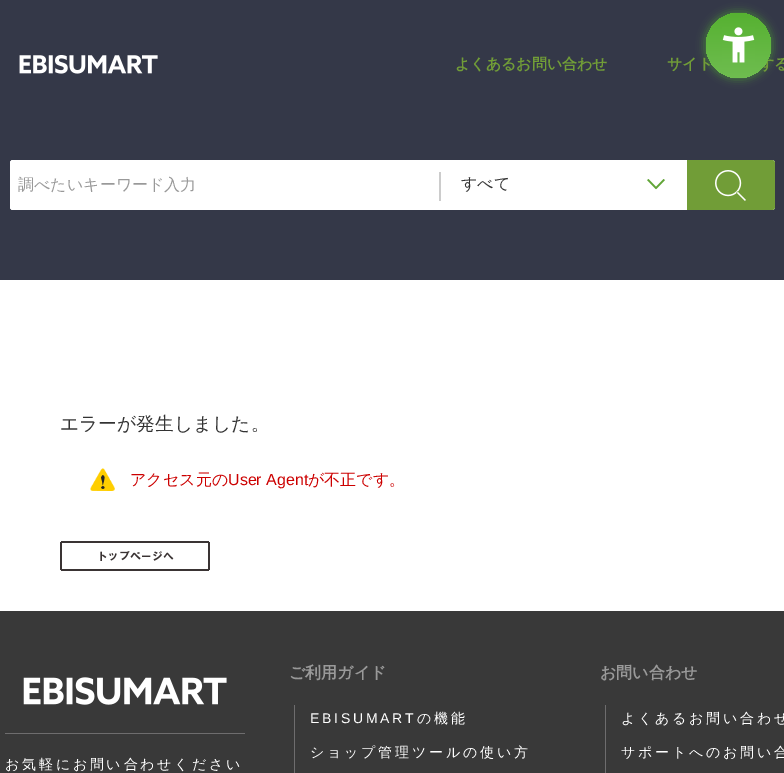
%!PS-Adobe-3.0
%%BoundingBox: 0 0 784 773
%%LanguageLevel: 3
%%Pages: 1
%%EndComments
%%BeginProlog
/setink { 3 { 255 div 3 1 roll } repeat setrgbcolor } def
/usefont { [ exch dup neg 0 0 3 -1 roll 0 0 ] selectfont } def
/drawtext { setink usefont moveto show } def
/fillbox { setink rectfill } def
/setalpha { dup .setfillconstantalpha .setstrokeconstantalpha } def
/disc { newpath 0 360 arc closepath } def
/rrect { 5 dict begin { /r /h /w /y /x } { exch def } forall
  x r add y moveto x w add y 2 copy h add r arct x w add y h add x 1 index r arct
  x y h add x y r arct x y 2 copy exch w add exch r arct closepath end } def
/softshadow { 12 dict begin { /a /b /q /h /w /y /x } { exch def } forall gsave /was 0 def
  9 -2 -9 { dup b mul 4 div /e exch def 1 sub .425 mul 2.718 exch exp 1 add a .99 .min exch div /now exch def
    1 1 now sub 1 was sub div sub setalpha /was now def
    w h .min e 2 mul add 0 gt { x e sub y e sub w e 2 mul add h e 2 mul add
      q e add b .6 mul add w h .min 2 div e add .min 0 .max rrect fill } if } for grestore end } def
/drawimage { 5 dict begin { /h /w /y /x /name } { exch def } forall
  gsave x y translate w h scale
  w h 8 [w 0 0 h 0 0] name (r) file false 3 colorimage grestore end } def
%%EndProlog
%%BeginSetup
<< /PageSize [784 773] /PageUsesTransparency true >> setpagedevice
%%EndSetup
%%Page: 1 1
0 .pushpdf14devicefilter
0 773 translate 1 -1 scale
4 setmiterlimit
0 0 784 773 255 255 255 fillbox
0 0 784 280 52 56 72 fillbox
86 177 49 setink
704 11 69 69 34.5 4 0.5 softshadow
(サイト) 667 69 /WenQuanYiZenHei-Bold 15 113 157 55 drawtext
(する) 759 69 /WenQuanYiZenHei-Bold 15 113 157 55 drawtext
gsave 738.5 45.5 32.5 disc clip newpath
<< /ShadingType 2 /ColorSpace /DeviceRGB /Coords [739 13 739 78] /Extend [true true] /Function << /FunctionType 2 /Domain [0 1] /C0 [0.337 0.694 0.192] /C1 [0.435 0.741 0.314] /N 1 >> >> shfill grestore
(assets/img1.rgb) 722 27 33 36 drawimage
(assets/img2.rgb) 19 55 139 19 drawimage
(よくあるお問い合わせ) 455 69 /WenQuanYiZenHei-Bold 15 113 157 55 drawtext
255 255 255 setink
10 160 765 50 3 rrect fill
10 160 425 50 3 rrect fill
(調べたいキーワード入力) 18 190 /WenQuanYiZenHei-Medium 16 153 153 153 drawtext
439 172 2 29 204 204 204 fillbox
(すべて) 461 189 /WenQuanYiZenHei-Medium 16 51 51 51 drawtext
(assets/img3.rgb) 647 179 18 11 drawimage
113 157 55 setink
687 160 moveto 772 160 lineto 773.5 160 775 161.5 775 163 curveto 775 207 lineto 775 208.5 773.5 210 772 210 curveto 687 210 lineto closepath fill
(assets/img4.rgb) 715 170 31 31 drawimage
(エラーが発生しました。) 60 430 /WenQuanYiZenHei-Medium 18.75 51 51 51 drawtext
(assets/img5.rgb) 90 468 25 23 drawimage
(アクセス元の) 130 485 /WenQuanYiZenHei-Medium 16 204 0 0 drawtext
(User Agent) 228 485 /LiberationSans-Regular 16 204 0 0 drawtext
(が不正です。) 308 485 /WenQuanYiZenHei-Medium 16 204 0 0 drawtext
(assets/img6.rgb) 60 541 150 30 drawimage
0 611 784 162 57 57 57 fillbox
(ご利用ガイド) 289 678 /WenQuanYiZenHei-Bold 16 153 153 153 drawtext
294 705 1 68 110 109 110 fillbox
/LiberationSans-Regular 14 usefont
255 255 255 setink
310 723 moveto 2.75 0 (EBISUMART) ashow
/WenQuanYiZenHei-Medium 14 usefont
417 723 moveto 2.75 0 (の機能) ashow
310 757 moveto 2.75 0 (ショップ管理ツールの使い方) ashow
(お問い合わせ) 600 678 /WenQuanYiZenHei-Bold 16 153 153 153 drawtext
605 705 1 68 110 109 110 fillbox
/WenQuanYiZenHei-Medium 14 usefont
255 255 255 setink
621 723 moveto 2.75 0 (よくあるお問い合わせ) ashow
621 757 moveto 2.75 0 (サポートへのお問い合) ashow
(assets/img7.rgb) 23 677 204 28 drawimage
5 733 240 1 110 109 110 fillbox
255 255 255 setink
5 769 moveto 2.75 0 (お気軽にお問い合わせください) ashow
.poppdf14devicefilter showpage
%%EOF
